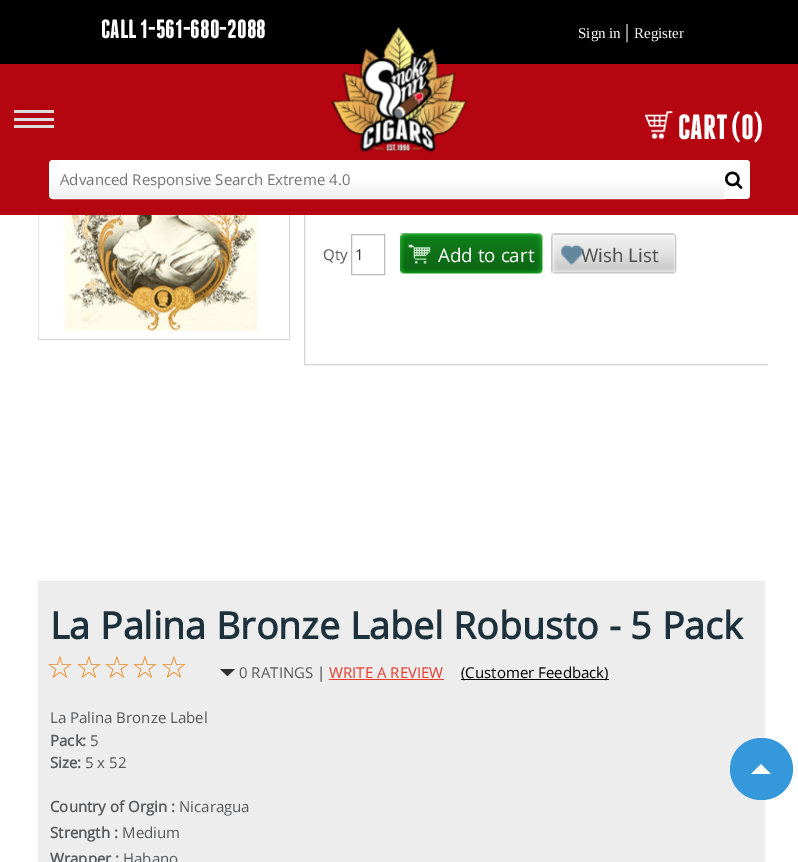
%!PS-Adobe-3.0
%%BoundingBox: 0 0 798 862
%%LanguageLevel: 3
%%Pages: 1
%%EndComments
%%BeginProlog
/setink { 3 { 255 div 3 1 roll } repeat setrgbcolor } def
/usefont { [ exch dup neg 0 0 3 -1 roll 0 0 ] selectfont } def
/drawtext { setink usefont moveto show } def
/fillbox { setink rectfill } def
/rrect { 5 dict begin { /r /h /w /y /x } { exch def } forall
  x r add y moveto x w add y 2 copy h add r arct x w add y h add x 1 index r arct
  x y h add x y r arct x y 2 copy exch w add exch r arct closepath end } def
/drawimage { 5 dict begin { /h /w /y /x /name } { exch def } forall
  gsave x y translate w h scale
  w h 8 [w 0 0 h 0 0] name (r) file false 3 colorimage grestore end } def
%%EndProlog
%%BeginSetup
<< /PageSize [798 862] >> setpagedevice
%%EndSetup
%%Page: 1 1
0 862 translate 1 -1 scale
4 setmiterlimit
0 0 798 862 255 255 255 fillbox
0 0 798 64 0 0 0 fillbox
(CALL 1-561-680-2088) 101 38 /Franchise-Bold 26.25 255 255 255 drawtext
(Sign in) 578 38 /LiberationSerif-Regular 15 255 255 255 drawtext
(|) 625 38 /LiberationSerif-Regular 20 255 255 255 drawtext
(Register) 634 38 /LiberationSerif-Regular 15 255 255 255 drawtext
219 219 219 setink
38.5 88.5 251 251 rectstroke
gsave
31 11 737 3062 rectclip
216 211 211 setink
304.5 86.5 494 278 rectstroke
grestore
0 64 798 151 181 5 16 fillbox
14 110 40 3 221 221 221 fillbox
14 118 40 3 221 221 221 fillbox
14 125 40 3 221 221 221 fillbox
(assets/img1.rgb) 331 26 137 127 drawimage
(assets/img2.rgb) 645 111 28 28 drawimage
(CART \(0\)) 678 139 /Franchise-Bold 35 255 255 255 drawtext
gsave 52.5 161 moveto 724 161 lineto 724 198 lineto 52.5 198 lineto 51 198 50 197 50 195.5 curveto 50 163.5 lineto 50 162 51 161 52.5 161 curveto closepath clip newpath
<< /ShadingType 2 /ColorSpace /DeviceRGB /Coords [387 198 387 161] /Extend [true true] /Function << /FunctionType 3 /Domain [0 1] /Functions [<< /FunctionType 2 /Domain [0 1] /C0 [0.933 0.933 0.933] /C1 [1 1 1] /N 1 >> << /FunctionType 2 /Domain [0 1] /C0 [1 1 1] /C1 [1 1 1] /N 1 >>] /Bounds [0.5] /Encode [0 1 0 1] >> >> shfill grestore
53 160.5 moveto 724.5 160.5 lineto 724.5 198.5 lineto 53 198.5 lineto 51 198.5 49.5 197 49.5 195 curveto 49.5 164 lineto 49.5 162 51 160.5 53 160.5 curveto closepath stroke
(Advanced Responsive Search Extreme 4.0) 60 185 /OpenSans-Regular 15 117 117 117 drawtext
255 255 255 setink
725 160 moveto 746 160 lineto 748 160 750 162 750 164 curveto 750 195 lineto 750 197 748 199 746 199 curveto 725 199 lineto closepath fill
725 160 moveto 746 160 lineto 748.5 160 750 161.5 750 164 curveto 750 195 lineto 750 197 748.5 199 746 199 curveto 725 199 lineto closepath 725 161 moveto 746 161 lineto 747.5 161 749 162.5 749 164 curveto 749 195 lineto 749 196.5 747.5 197.5 746 197.5 curveto 725 197.5 lineto closepath eofill
(assets/img3.rgb) 725 171 18 18 drawimage
(assets/img4.rgb) 38 215 251 124 drawimage
(Qty) 323 260 /OpenSans-Regular 15 88 89 91 drawtext
187 187 187 setink
351.5 234.5 33 40 rectstroke
(1) 355 260 /OpenSans-Regular 15 52 52 52 drawtext
(assets/img5.rgb) 400 233 143 41 drawimage
(assets/img6.rgb) 400 233 134 41 drawimage
(Add to cart) 438 262 /OpenSans-Regular 18.75 255 255 255 drawtext
(assets/img7.rgb) 551 233 126 41 drawimage
(assets/img8.rgb) 551 233 123 41 drawimage
(Wish List) 581 262 /OpenSans-Regular 18.75 79 79 79 drawtext
(assets/img9.rgb) 560 244 23 21 drawimage
38 581 727 281 237 237 237 fillbox
(La Palina Bronze Label Robusto - 5 Pack) 50 639 /OpenSans-Bold 37.5 29 49 61 drawtext
(☆) 46 678 /DejaVuSans-Regular 31 237 135 28 drawtext
(☆) 75 678 /DejaVuSans-Regular 31 237 135 28 drawtext
(☆) 103 678 /DejaVuSans-Regular 31 237 135 28 drawtext
(☆) 131 678 /DejaVuSans-Regular 31 237 135 28 drawtext
(☆) 160 678 /DejaVuSans-Regular 31 237 135 28 drawtext
47 47 47 setink
220 669 moveto 235 669 lineto 227.5 676 lineto closepath fill
(0 RATINGS |) 239 678 /OpenSans-Regular 15 88 89 91 drawtext
(WRITE A REVIEW) 329 678 /OpenSans-Regular 15 228 60 47 drawtext
329 679 115 1 228 60 47 fillbox
461 679 148 1 0 0 0 fillbox
(\(Customer Feedback\)) 461 678 /OpenSans-Regular 15 0 0 0 drawtext
(La Palina Bronze Label) 50 723 /OpenSans-Regular 15 88 89 91 drawtext
(Pack:) 50 746 /OpenSans-Bold 15 88 89 91 drawtext
(5) 90 746 /OpenSans-Regular 15 88 89 91 drawtext
(Size:) 50 768 /OpenSans-Bold 15 88 89 91 drawtext
(5 x 52) 85 768 /OpenSans-Regular 15 88 89 91 drawtext
(Country of Orgin :) 50 812 /OpenSans-Bold 15 88 89 91 drawtext
(Nicaragua) 179 812 /OpenSans-Regular 15 88 89 91 drawtext
(Strength :) 50 838 /OpenSans-Bold 15 88 89 91 drawtext
(Medium) 122 838 /OpenSans-Regular 15 88 89 91 drawtext
(Wrapper :) 50 864 /OpenSans-Bold 15 88 89 91 drawtext
(Habano) 123 864 /OpenSans-Regular 15 88 89 91 drawtext
52 152 219 setink
730 738 63 62 31 rrect fill
255 255 255 setink
771 774 moveto 751 774 lineto 761 764 lineto closepath fill
showpage
%%EOF
